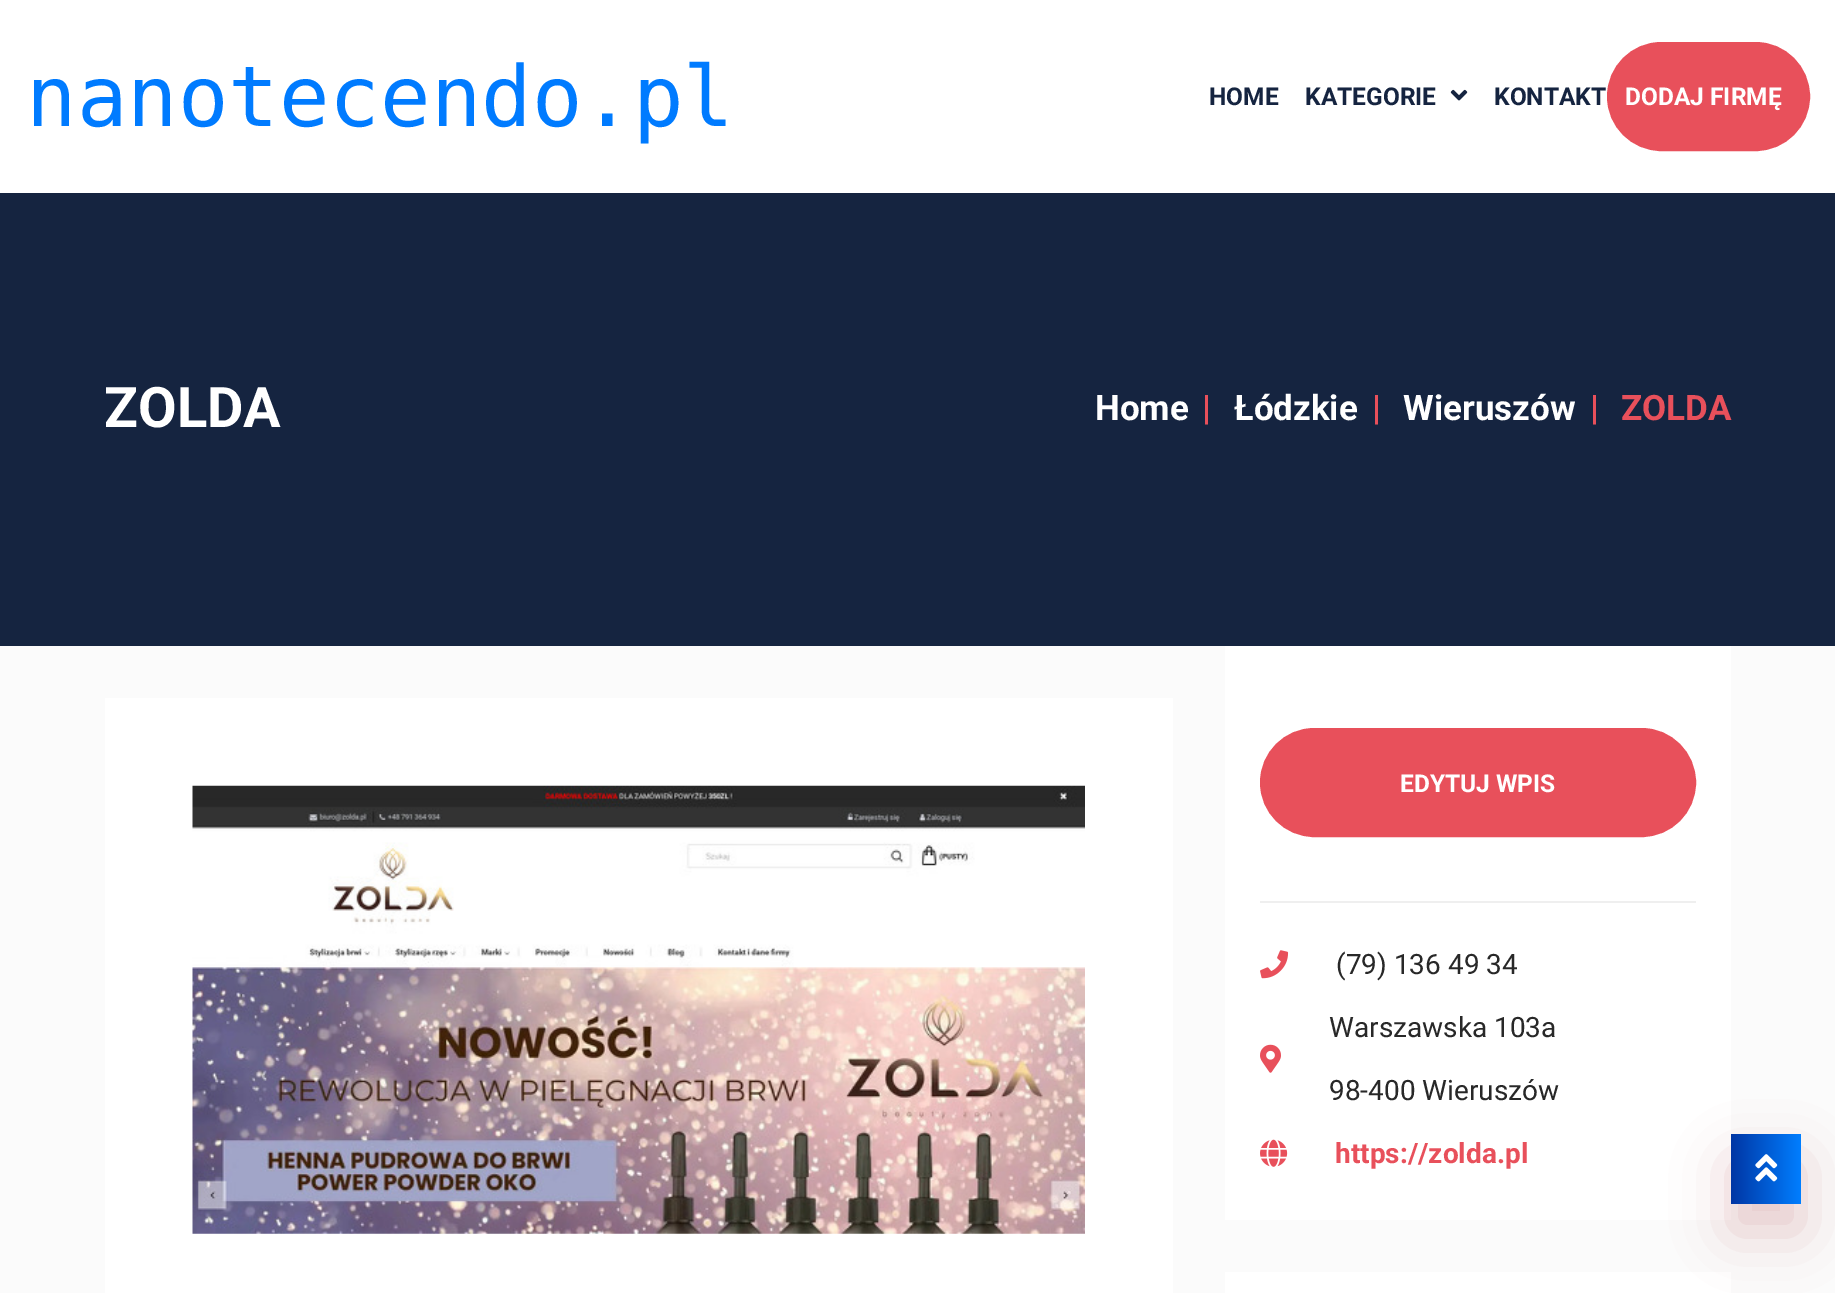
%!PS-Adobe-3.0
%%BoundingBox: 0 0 1835 1293
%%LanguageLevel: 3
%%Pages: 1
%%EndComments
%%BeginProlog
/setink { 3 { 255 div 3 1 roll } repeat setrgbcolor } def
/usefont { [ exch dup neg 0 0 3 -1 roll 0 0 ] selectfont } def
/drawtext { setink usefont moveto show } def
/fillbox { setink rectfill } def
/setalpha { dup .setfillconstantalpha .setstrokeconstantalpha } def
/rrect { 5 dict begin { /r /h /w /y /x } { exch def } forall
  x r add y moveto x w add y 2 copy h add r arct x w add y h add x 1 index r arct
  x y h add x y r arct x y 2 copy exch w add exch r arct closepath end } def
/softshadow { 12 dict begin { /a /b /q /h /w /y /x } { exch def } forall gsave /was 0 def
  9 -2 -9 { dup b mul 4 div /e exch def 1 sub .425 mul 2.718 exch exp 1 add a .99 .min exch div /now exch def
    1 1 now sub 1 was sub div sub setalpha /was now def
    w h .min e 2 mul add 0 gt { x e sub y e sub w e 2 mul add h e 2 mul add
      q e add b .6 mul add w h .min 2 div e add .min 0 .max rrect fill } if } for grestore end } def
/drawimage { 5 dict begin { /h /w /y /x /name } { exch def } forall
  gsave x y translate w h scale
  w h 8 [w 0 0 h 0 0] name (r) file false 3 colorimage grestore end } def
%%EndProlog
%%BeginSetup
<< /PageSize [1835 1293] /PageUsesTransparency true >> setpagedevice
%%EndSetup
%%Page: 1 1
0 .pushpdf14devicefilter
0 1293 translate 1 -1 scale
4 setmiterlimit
0 0 1835 1293 21 36 64 fillbox
0 0 1835 193 255 255 255 fillbox
(nanotecendo.pl) 26 126 /DejaVuSansMono-Regular 84 0 123 255 drawtext
(HOME) 1209 105 /Roboto-Bold 24.5 21 36 64 drawtext
(KATEGORIE) 1305 105 /Roboto-Bold 24.5 21 36 64 drawtext
(assets/img1.rgb) 1450 89 18 12 drawimage
(KONTAKT) 1494 105 /Roboto-Bold 24.5 21 36 64 drawtext
232 80 91 setink
1608 43 201 107 53.5 rrect gsave fill grestore
2 setlinewidth
stroke
(DODAJ FIRMĘ) 1625 105 /Roboto-Bold 24.5 255 255 255 drawtext
(ZOLDA) 104 427 /Roboto-Bold 56 255 255 255 drawtext
(Home) 1095 420 /Roboto-Bold 35 255 255 255 drawtext
(|) 1202 420 /Roboto-Bold 35 232 80 91 drawtext
(Łódzkie) 1234 420 /Roboto-Bold 35 255 255 255 drawtext
(|) 1372 420 /Roboto-Bold 35 232 80 91 drawtext
(Wieruszów) 1403 420 /Roboto-Bold 35 255 255 255 drawtext
(|) 1590 420 /Roboto-Bold 35 232 80 91 drawtext
(ZOLDA) 1621 420 /Roboto-Bold 35 232 80 91 drawtext
0 646 1835 647 251 251 251 fillbox
105 698 1068 595 255 255 255 fillbox
(assets/img2.rgb) 192 785 893 449 drawimage
1225 646 506 574 255 255 255 fillbox
232 80 91 setink
1261 729 434 107 53.5 rrect gsave fill grestore
stroke
(EDYTUJ WPIS) 1400 792 /Roboto-Bold 24.5 255 255 255 drawtext
1260 901 436 2 239 239 239 fillbox
(assets/img3.rgb) 1260 950 29 29 drawimage
(\(79\) 136 49 34) 1336 974 /Roboto-Regular 28 40 40 40 drawtext
(assets/img4.rgb) 1260 1044 21 29 drawimage
(Warszawska 103a) 1329 1037 /Roboto-Regular 28 40 40 40 drawtext
(98-400 Wieruszów) 1329 1100 /Roboto-Regular 28 40 40 40 drawtext
(assets/img5.rgb) 1260 1139 28 28 drawimage
(https://zolda.pl) 1335 1163 /Roboto-Bold 28 232 80 91 drawtext
1225 1272 506 21 255 255 255 fillbox
151 4 15 setink
1731 1162 70 70 0 28 0.2 softshadow
gsave 1731 1134 moveto 1801 1134 lineto 1801 1204 lineto 1731 1204 lineto closepath clip newpath
<< /ShadingType 2 /ColorSpace /DeviceRGB /Coords [1731 1169 1801 1169] /Extend [true true] /Function << /FunctionType 2 /Domain [0 1] /C0 [0 0.212 0.643] /C1 [0 0.494 1] /N 1 >> >> shfill grestore
(assets/img6.rgb) 1755 1154 23 28 drawimage
.poppdf14devicefilter showpage
%%EOF
